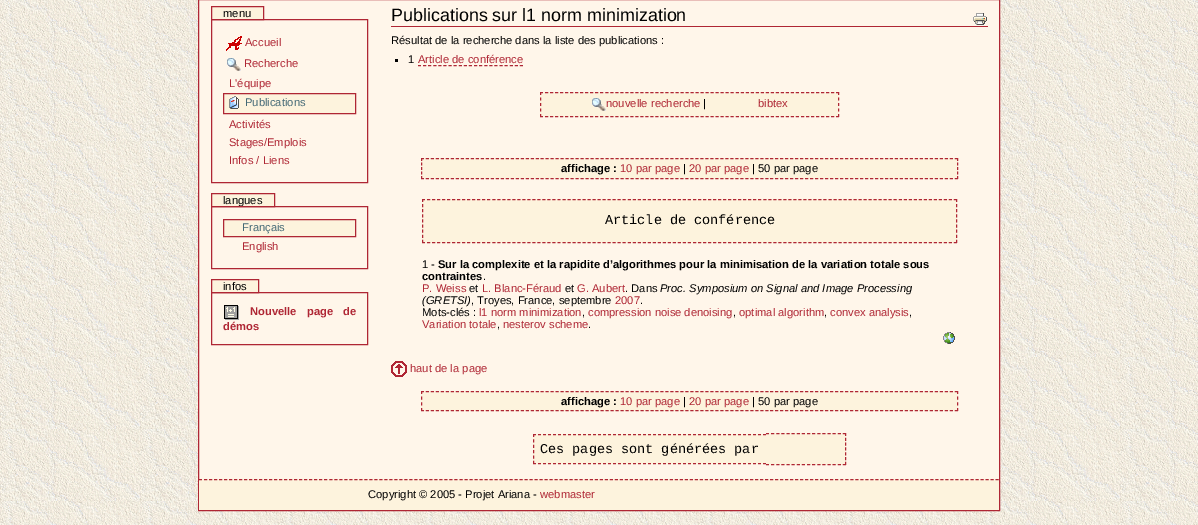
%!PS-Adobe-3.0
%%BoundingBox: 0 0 1198 525
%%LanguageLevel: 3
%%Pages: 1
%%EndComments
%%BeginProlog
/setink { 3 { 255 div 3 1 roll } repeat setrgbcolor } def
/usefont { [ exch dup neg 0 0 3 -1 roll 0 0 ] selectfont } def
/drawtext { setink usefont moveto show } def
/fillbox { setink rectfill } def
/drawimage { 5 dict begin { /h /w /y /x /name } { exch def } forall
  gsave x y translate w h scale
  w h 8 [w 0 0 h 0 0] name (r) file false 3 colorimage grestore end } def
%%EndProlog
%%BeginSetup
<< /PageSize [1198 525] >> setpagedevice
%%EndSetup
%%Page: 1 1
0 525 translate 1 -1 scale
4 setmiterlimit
0 0 1198 525 255 255 255 fillbox
(assets/img1.rgb) 0 0 1198 525 drawimage
199 0 800 479 255 246 234 fillbox
175 38 52 setink
198.5 -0.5 801 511 rectstroke
253 243 221 setink
211.5 6.5 moveto 263.5 6.5 lineto 263.5 19.5 lineto 211.5 19.5 lineto closepath gsave fill grestore
175 38 52 setink
stroke
(menu) 223 17 /LiberationSans-Regular 11.2 0 0 0 drawtext
175 38 52 setink
211.5 19.5 156 163 rectstroke
(assets/img2.rgb) 226 36 16 15 drawimage
(Accueil) 245 46 /LiberationSans-Regular 11.2 175 38 52 drawtext
(assets/img3.rgb) 227 58 14 13 drawimage
(Recherche) 244 67 /LiberationSans-Regular 11.2 175 38 52 drawtext
(L'équipe) 229 87 /LiberationSans-Regular 11.2 175 38 52 drawtext
253 243 221 setink
223.5 93.5 moveto 355.5 93.5 lineto 355.5 113.5 lineto 223.5 113.5 lineto closepath gsave fill grestore
175 38 52 setink
stroke
(assets/img4.rgb) 229 96 10 13 drawimage
(Publications) 245 106 /LiberationSans-Regular 11.2 67 105 118 drawtext
(Activités) 229 128 /LiberationSans-Regular 11.2 175 38 52 drawtext
(Stages/Emplois) 229 146 /LiberationSans-Regular 11.2 175 38 52 drawtext
(Infos / Liens) 229 164 /LiberationSans-Regular 11.2 175 38 52 drawtext
253 243 221 setink
211.5 193.5 moveto 274.5 193.5 lineto 274.5 206.5 lineto 211.5 206.5 lineto closepath gsave fill grestore
175 38 52 setink
stroke
(langues) 223 204 /LiberationSans-Regular 11.2 0 0 0 drawtext
175 38 52 setink
211.5 206.5 156 62 rectstroke
253 243 221 setink
223.5 219.5 moveto 355.5 219.5 lineto 355.5 236.5 lineto 223.5 236.5 lineto closepath gsave fill grestore
175 38 52 setink
stroke
(Français) 242 231 /LiberationSans-Regular 11.2 67 105 118 drawtext
(English) 242 250 /LiberationSans-Regular 11.2 175 38 52 drawtext
253 243 221 setink
211.5 279.5 moveto 258.5 279.5 lineto 258.5 292.5 lineto 211.5 292.5 lineto closepath gsave fill grestore
175 38 52 setink
stroke
(infos) 223 290 /LiberationSans-Regular 11.2 0 0 0 drawtext
175 38 52 setink
211.5 292.5 156 52 rectstroke
(assets/img5.rgb) 224 305 15 15 drawimage
/LiberationSans-Bold 11.2 usefont
250 315 moveto 7 0 32 (Nouvelle page de) widthshow
(démos) 223 330 /LiberationSans-Bold 11.2 175 38 52 drawtext
391 26 597 1 175 38 52 fillbox
(Publications sur l1 norm minimization) 391 21 /LiberationSans-Regular 17.9 0 0 0 drawtext
(assets/img6.rgb) 973 13 14 12 drawimage
(Résultat de la recherche dans la liste des publications :) 391 44 /LiberationSans-Regular 11.2 0 0 0 drawtext
395 59 3 3 0 0 0 fillbox
(1) 408 63 /LiberationSans-Regular 11.2 0 0 0 drawtext
(Article de conférence) 418 63 /LiberationSans-Regular 11.2 175 38 52 drawtext
[3 2.1] 0 setdash
418 65.5 moveto 523 65.5 lineto stroke
540 92 299 25 253 243 221 fillbox
175 38 52 setink
[3 2.02] 0 setdash
540 92.5 moveto 839 92.5 lineto stroke
[3 2.5] 0 setdash
838.5 92 moveto 838.5 117 lineto stroke
[3 2.02] 0 setdash
540 116.5 moveto 839 116.5 lineto stroke
[3 2.5] 0 setdash
540.5 92 moveto 540.5 117 lineto stroke
(assets/img7.rgb) 592 98 14 13 drawimage
(nouvelle recherche) 606 107 /LiberationSans-Regular 11.2 175 38 52 drawtext
(|) 703 107 /LiberationSans-Regular 11.2 0 0 0 drawtext
(bibtex) 758 107 /LiberationSans-Regular 11.2 175 38 52 drawtext
421 158 537 21 253 243 221 fillbox
175 38 52 setink
[3 1.99] 0 setdash
421 158.5 moveto 958 158.5 lineto stroke
[3 1.5] 0 setdash
957.5 158 moveto 957.5 179 lineto stroke
[3 1.99] 0 setdash
421 178.5 moveto 958 178.5 lineto stroke
[3 1.5] 0 setdash
421.5 158 moveto 421.5 179 lineto stroke
(affichage :) 561 172 /LiberationSans-Bold 11.2 0 0 0 drawtext
(10 par page) 620 172 /LiberationSans-Regular 11.2 175 38 52 drawtext
(|) 683 172 /LiberationSans-Regular 11.2 0 0 0 drawtext
(20 par page) 689 172 /LiberationSans-Regular 11.2 175 38 52 drawtext
(| 50 par page) 752 172 /LiberationSans-Regular 11.2 0 0 0 drawtext
422 199 535 44 253 243 221 fillbox
175 38 52 setink
[3 2.02] 0 setdash
422 199.5 moveto 957 199.5 lineto stroke
[3 2.12] 0 setdash
956.5 199 moveto 956.5 243 lineto stroke
[3 2.02] 0 setdash
422 242.5 moveto 957 242.5 lineto stroke
[3 2.12] 0 setdash
422.5 199 moveto 422.5 243 lineto stroke
(Article de conférence) 605 224 /LiberationMono-Regular 13.5 0 0 0 drawtext
(1 -) 422 268 /LiberationSans-Regular 11.2 0 0 0 drawtext
(Sur la complexite et la rapidite d’algorithmes pour la minimisation de la variation totale sous) 438 268 /LiberationSans-Bold 11.2 0 0 0 drawtext
(contraintes) 422 280 /LiberationSans-Bold 11.2 0 0 0 drawtext
(.) 483 280 /LiberationSans-Regular 11.2 0 0 0 drawtext
(P. Weiss) 422 292 /LiberationSans-Regular 11.2 175 38 52 drawtext
(et) 469 292 /LiberationSans-Regular 11.2 0 0 0 drawtext
(L. Blanc-Féraud) 482 292 /LiberationSans-Regular 11.2 175 38 52 drawtext
(et) 565 292 /LiberationSans-Regular 11.2 0 0 0 drawtext
(G. Aubert) 577 292 /LiberationSans-Regular 11.2 175 38 52 drawtext
(. Dans) 625 292 /LiberationSans-Regular 11.2 0 0 0 drawtext
(Proc. Symposium on Signal and Image Processing) 660 292 /LiberationSans-Italic 11.2 0 0 0 drawtext
(\(GRETSI\)) 422 304 /LiberationSans-Italic 11.2 0 0 0 drawtext
(, Troyes, France, septembre) 471 304 /LiberationSans-Regular 11.2 0 0 0 drawtext
(2007) 615 304 /LiberationSans-Regular 11.2 175 38 52 drawtext
(.) 640 304 /LiberationSans-Regular 11.2 0 0 0 drawtext
(Mots-clés :) 422 316 /LiberationSans-Regular 11.2 0 0 0 drawtext
(l1 norm minimization) 479 316 /LiberationSans-Regular 11.2 175 38 52 drawtext
(,) 582 316 /LiberationSans-Regular 11.2 0 0 0 drawtext
(compression noise denoising) 588 316 /LiberationSans-Regular 11.2 175 38 52 drawtext
(,) 733 316 /LiberationSans-Regular 11.2 0 0 0 drawtext
(optimal algorithm) 739 316 /LiberationSans-Regular 11.2 175 38 52 drawtext
(,) 824 316 /LiberationSans-Regular 11.2 0 0 0 drawtext
(convex analysis) 830 316 /LiberationSans-Regular 11.2 175 38 52 drawtext
(,) 909 316 /LiberationSans-Regular 11.2 0 0 0 drawtext
(Variation totale) 422 328 /LiberationSans-Regular 11.2 175 38 52 drawtext
(,) 497 328 /LiberationSans-Regular 11.2 0 0 0 drawtext
(nesterov scheme) 503 328 /LiberationSans-Regular 11.2 175 38 52 drawtext
(.) 588 328 /LiberationSans-Regular 11.2 0 0 0 drawtext
(assets/img8.rgb) 943 332 12 12 drawimage
(assets/img9.rgb) 391 361 16 16 drawimage
(haut de la page) 410 372 /LiberationSans-Regular 11.2 175 38 52 drawtext
421 391 537 20 253 243 221 fillbox
175 38 52 setink
[3 1.99] 0 setdash
421 391.5 moveto 958 391.5 lineto stroke
[3 2.67] 0 setdash
957.5 391 moveto 957.5 411 lineto stroke
[3 1.99] 0 setdash
421 410.5 moveto 958 410.5 lineto stroke
[3 2.67] 0 setdash
421.5 391 moveto 421.5 411 lineto stroke
(affichage :) 561 405 /LiberationSans-Bold 11.2 0 0 0 drawtext
(10 par page) 620 405 /LiberationSans-Regular 11.2 175 38 52 drawtext
(|) 683 405 /LiberationSans-Regular 11.2 0 0 0 drawtext
(20 par page) 689 405 /LiberationSans-Regular 11.2 175 38 52 drawtext
(| 50 par page) 752 405 /LiberationSans-Regular 11.2 0 0 0 drawtext
533 434 233 30 253 243 221 fillbox
(Ces pages sont générées par) 540 453 /LiberationMono-Regular 13.5 0 0 0 drawtext
175 38 52 setink
[3 2] 0 setdash
533 434.5 moveto 766 434.5 lineto stroke
533 463.5 moveto 766 463.5 lineto stroke
[3 2.4] 0 setdash
533.5 434 moveto 533.5 464 lineto stroke
766 433 80 32 253 243 221 fillbox
175 38 52 setink
[3 2.13] 0 setdash
766 433.5 moveto 846 433.5 lineto stroke
[3 1.83] 0 setdash
845.5 433 moveto 845.5 465 lineto stroke
[3 2.13] 0 setdash
766 464.5 moveto 846 464.5 lineto stroke
199 479 800 31 253 243 221 fillbox
175 38 52 setink
[3 2.01] 0 setdash
199 479.5 moveto 999 479.5 lineto stroke
(Copyright © 2005 - Projet Ariana -) 368 498 /LiberationSans-Regular 11.2 0 0 0 drawtext
(webmaster) 540 498 /LiberationSans-Regular 11.2 175 38 52 drawtext
showpage
%%EOF
